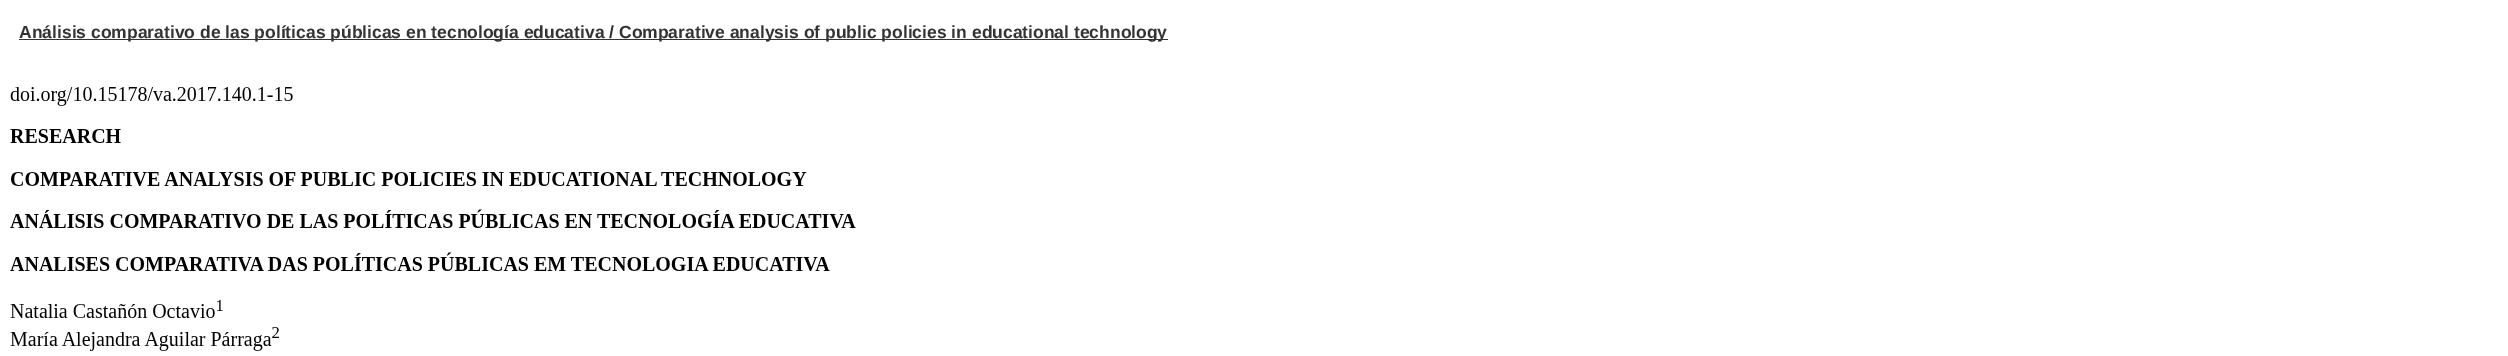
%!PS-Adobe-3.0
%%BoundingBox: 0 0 2508 356
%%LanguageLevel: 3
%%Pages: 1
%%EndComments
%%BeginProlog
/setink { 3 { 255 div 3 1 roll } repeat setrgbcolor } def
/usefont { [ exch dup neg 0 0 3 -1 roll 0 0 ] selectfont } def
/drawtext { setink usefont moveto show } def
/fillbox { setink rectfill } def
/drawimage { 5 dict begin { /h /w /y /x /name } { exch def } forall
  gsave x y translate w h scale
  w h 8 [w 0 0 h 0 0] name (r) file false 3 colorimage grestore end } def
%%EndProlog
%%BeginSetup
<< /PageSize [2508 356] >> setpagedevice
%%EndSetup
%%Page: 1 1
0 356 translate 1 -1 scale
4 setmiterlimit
0 0 2508 356 255 255 255 fillbox
19 39 1149 1 51 51 51 fillbox
(Análisis comparativo de las políticas públicas en tecnología educativa / Comparative analysis of public policies in educational technology) 19 38 /LiberationSans-Bold 17.5 51 51 51 drawtext
(assets/img1.rgb) 10 87 846 264 drawimage
showpage
%%EOF
